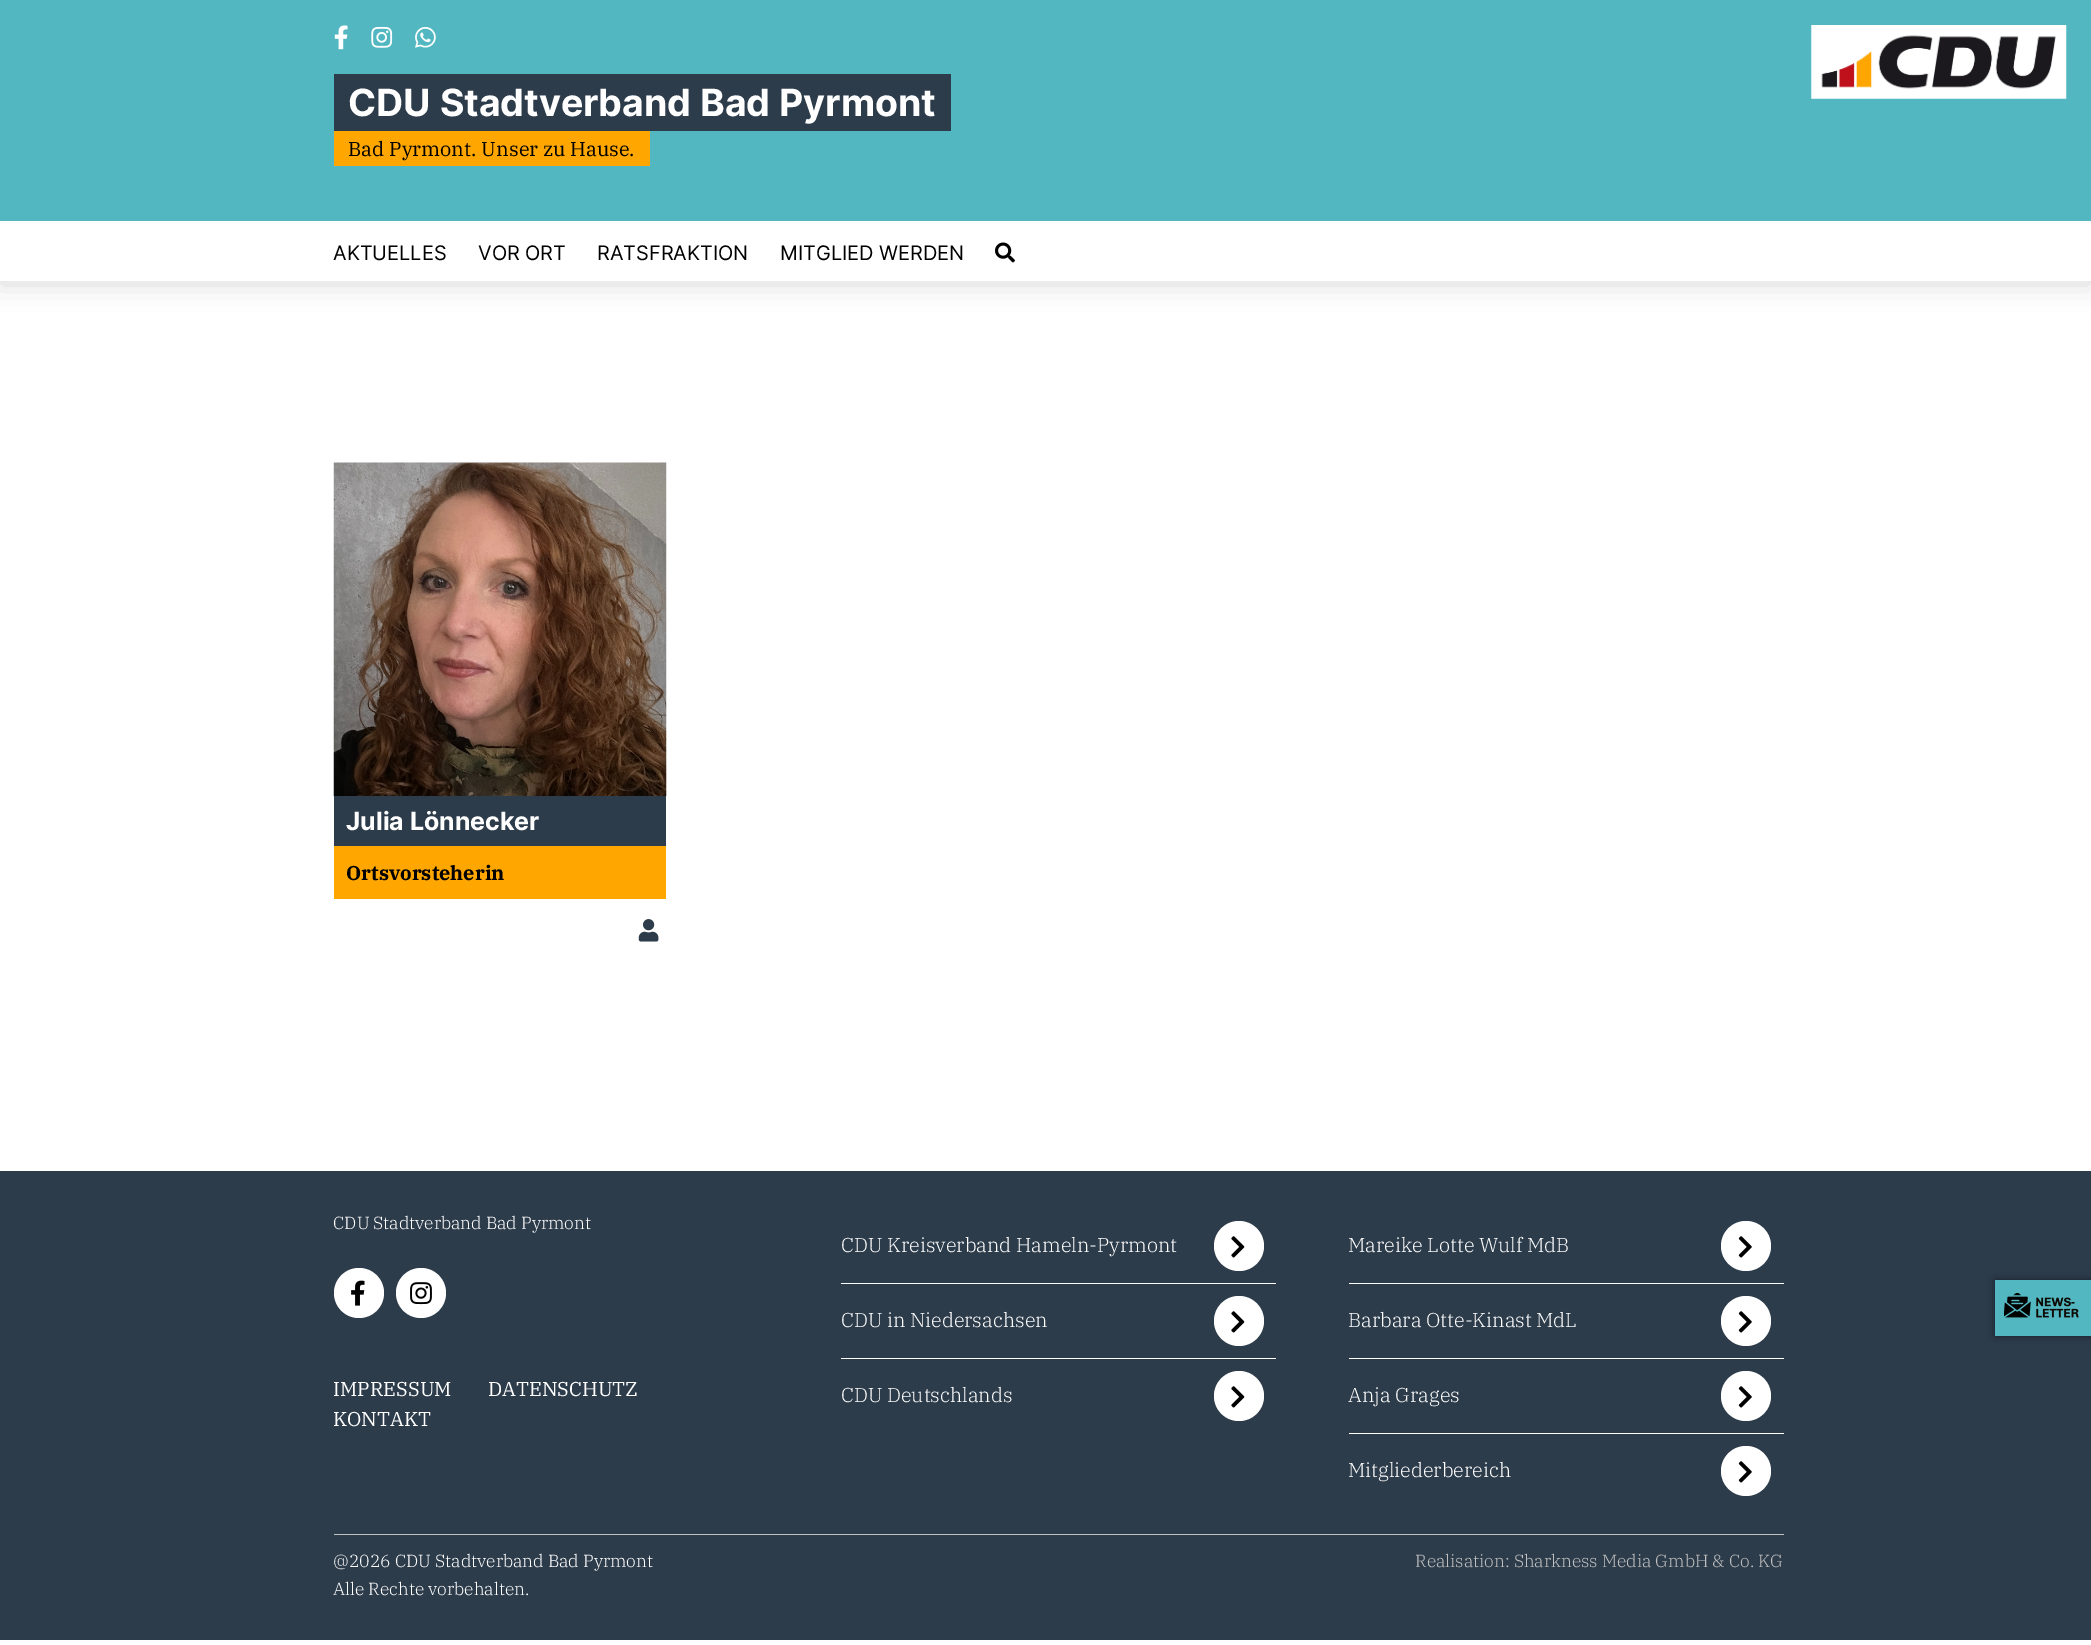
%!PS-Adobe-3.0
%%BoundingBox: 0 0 2091 1645
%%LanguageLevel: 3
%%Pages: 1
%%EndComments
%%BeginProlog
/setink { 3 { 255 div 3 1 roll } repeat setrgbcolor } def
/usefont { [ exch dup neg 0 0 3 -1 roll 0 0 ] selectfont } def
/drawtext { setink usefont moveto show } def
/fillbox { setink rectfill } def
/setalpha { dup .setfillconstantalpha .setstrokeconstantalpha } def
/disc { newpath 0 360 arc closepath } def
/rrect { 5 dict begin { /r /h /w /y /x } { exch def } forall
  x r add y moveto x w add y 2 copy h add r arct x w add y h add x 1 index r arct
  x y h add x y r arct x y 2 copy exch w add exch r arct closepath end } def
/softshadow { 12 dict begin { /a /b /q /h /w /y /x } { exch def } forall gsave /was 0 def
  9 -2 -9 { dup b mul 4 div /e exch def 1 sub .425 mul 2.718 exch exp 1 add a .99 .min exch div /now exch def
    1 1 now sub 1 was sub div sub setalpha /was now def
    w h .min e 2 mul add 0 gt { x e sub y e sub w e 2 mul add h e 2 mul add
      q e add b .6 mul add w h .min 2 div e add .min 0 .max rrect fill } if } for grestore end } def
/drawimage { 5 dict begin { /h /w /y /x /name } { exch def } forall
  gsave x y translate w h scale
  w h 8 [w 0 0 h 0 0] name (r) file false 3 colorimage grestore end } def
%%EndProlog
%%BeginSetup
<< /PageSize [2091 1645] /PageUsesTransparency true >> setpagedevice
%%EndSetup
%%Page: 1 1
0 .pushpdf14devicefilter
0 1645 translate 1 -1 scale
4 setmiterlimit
0 0 2091 1645 255 255 255 fillbox
0 0 0 setink
0 3 2091 281 0 13 0.15 softshadow
0 0 2091 221 82 183 193 fillbox
(assets/img1.rgb) 1811 25 256 74 drawimage
(assets/img2.rgb) 334 25 14 25 drawimage
(assets/img3.rgb) 371 26 22 22 drawimage
(assets/img4.rgb) 415 27 21 21 drawimage
334 74 617 57 45 60 75 fillbox
(CDU Stadtverband Bad Pyrmont) 348 116 /Inter-Bold 37.5 255 255 255 drawtext
334 131 316 35 255 166 0 fillbox
(Bad Pyrmont. Unser zu Hause.) 348 156 /IBMPlexSerif-Regular 20 0 0 0 drawtext
0 221 2091 60 255 255 255 fillbox
(AKTUELLES) 333 260 /Inter-Regular 20 0 0 0 drawtext
(VOR ORT) 478 260 /Inter-Regular 20 0 0 0 drawtext
(RATSFRAKTION) 597 260 /Inter-Regular 20 0 0 0 drawtext
(MITGLIED WERDEN) 780 260 /Inter-Regular 20 0 0 0 drawtext
(assets/img5.rgb) 995 242 20 21 drawimage
(assets/img6.rgb) 333 462 334 335 drawimage
334 796 332 50 45 60 75 fillbox
(Julia Lönnecker) 346 830 /Inter-Bold 25 255 255 255 drawtext
334 846 332 53 255 166 0 fillbox
(Ortsvorsteherin) 346 880 /IBMPlexSerif-Bold 20 0 0 0 drawtext
(assets/img7.rgb) 638 919 21 23 drawimage
0 1171 2091 469 45 60 75 fillbox
(CDU Stadtverband Bad Pyrmont) 333 1229 /IBMPlexSerif-Light 17.5 255 255 255 drawtext
359 1293 25 disc fill
(assets/img8.rgb) 351 1280 14 26 drawimage
421 1293 25 disc fill
(assets/img9.rgb) 410 1282 22 23 drawimage
(IMPRESSUM) 333 1396 /IBMPlexSerif-Regular 20 255 255 255 drawtext
(DATENSCHUTZ) 488 1396 /IBMPlexSerif-Regular 20 255 255 255 drawtext
(KONTAKT) 333 1426 /IBMPlexSerif-Regular 20 255 255 255 drawtext
841 1283 435 1 255 255 255 fillbox
(CDU Kreisverband Hameln-Pyrmont) 841 1252 /IBMPlexSerif-Light 20 255 255 255 drawtext
1239 1246 25 disc fill
(assets/img10.rgb) 1231 1236 14 22 drawimage
841 1358 435 1 255 255 255 fillbox
(CDU in Niedersachsen) 841 1327 /IBMPlexSerif-Light 20 255 255 255 drawtext
1239 1321 25 disc fill
(assets/img10.rgb) 1231 1311 14 22 drawimage
(CDU Deutschlands) 841 1402 /IBMPlexSerif-Light 20 255 255 255 drawtext
1239 1396 25 disc fill
(assets/img10.rgb) 1231 1386 14 22 drawimage
1349 1283 435 1 255 255 255 fillbox
(Mareike Lotte Wulf MdB) 1348 1252 /IBMPlexSerif-Light 20 255 255 255 drawtext
1746 1246 25 disc fill
(assets/img11.rgb) 1738 1236 14 22 drawimage
1349 1358 435 1 255 255 255 fillbox
(Barbara Otte-Kinast MdL) 1348 1327 /IBMPlexSerif-Light 20 255 255 255 drawtext
1746 1321 25 disc fill
(assets/img11.rgb) 1738 1311 14 22 drawimage
1349 1433 435 1 255 255 255 fillbox
(Anja Grages) 1348 1402 /IBMPlexSerif-Light 20 255 255 255 drawtext
1746 1396 25 disc fill
(assets/img11.rgb) 1738 1386 14 22 drawimage
(Mitgliederbereich) 1348 1477 /IBMPlexSerif-Light 20 255 255 255 drawtext
1746 1471 25 disc fill
(assets/img11.rgb) 1738 1461 14 22 drawimage
334 1534 1450 1 192 192 192 fillbox
(@2026 CDU Stadtverband Bad Pyrmont) 333 1567 /IBMPlexSerif-Light 17.5 255 255 255 drawtext
(Alle Rechte vorbehalten.) 333 1595 /IBMPlexSerif-Light 17.5 255 255 255 drawtext
(Realisation: Sharkness Media GmbH & Co. KG) 1415 1567 /IBMPlexSerif-Light 17.5 192 192 192 drawtext
0 0 0 setink
1995 1280 96 56 0 4 0.5 softshadow
1995 1280 96 56 82 183 193 fillbox
(assets/img12.rgb) 2004 1293 75 25 drawimage
.poppdf14devicefilter showpage
%%EOF
